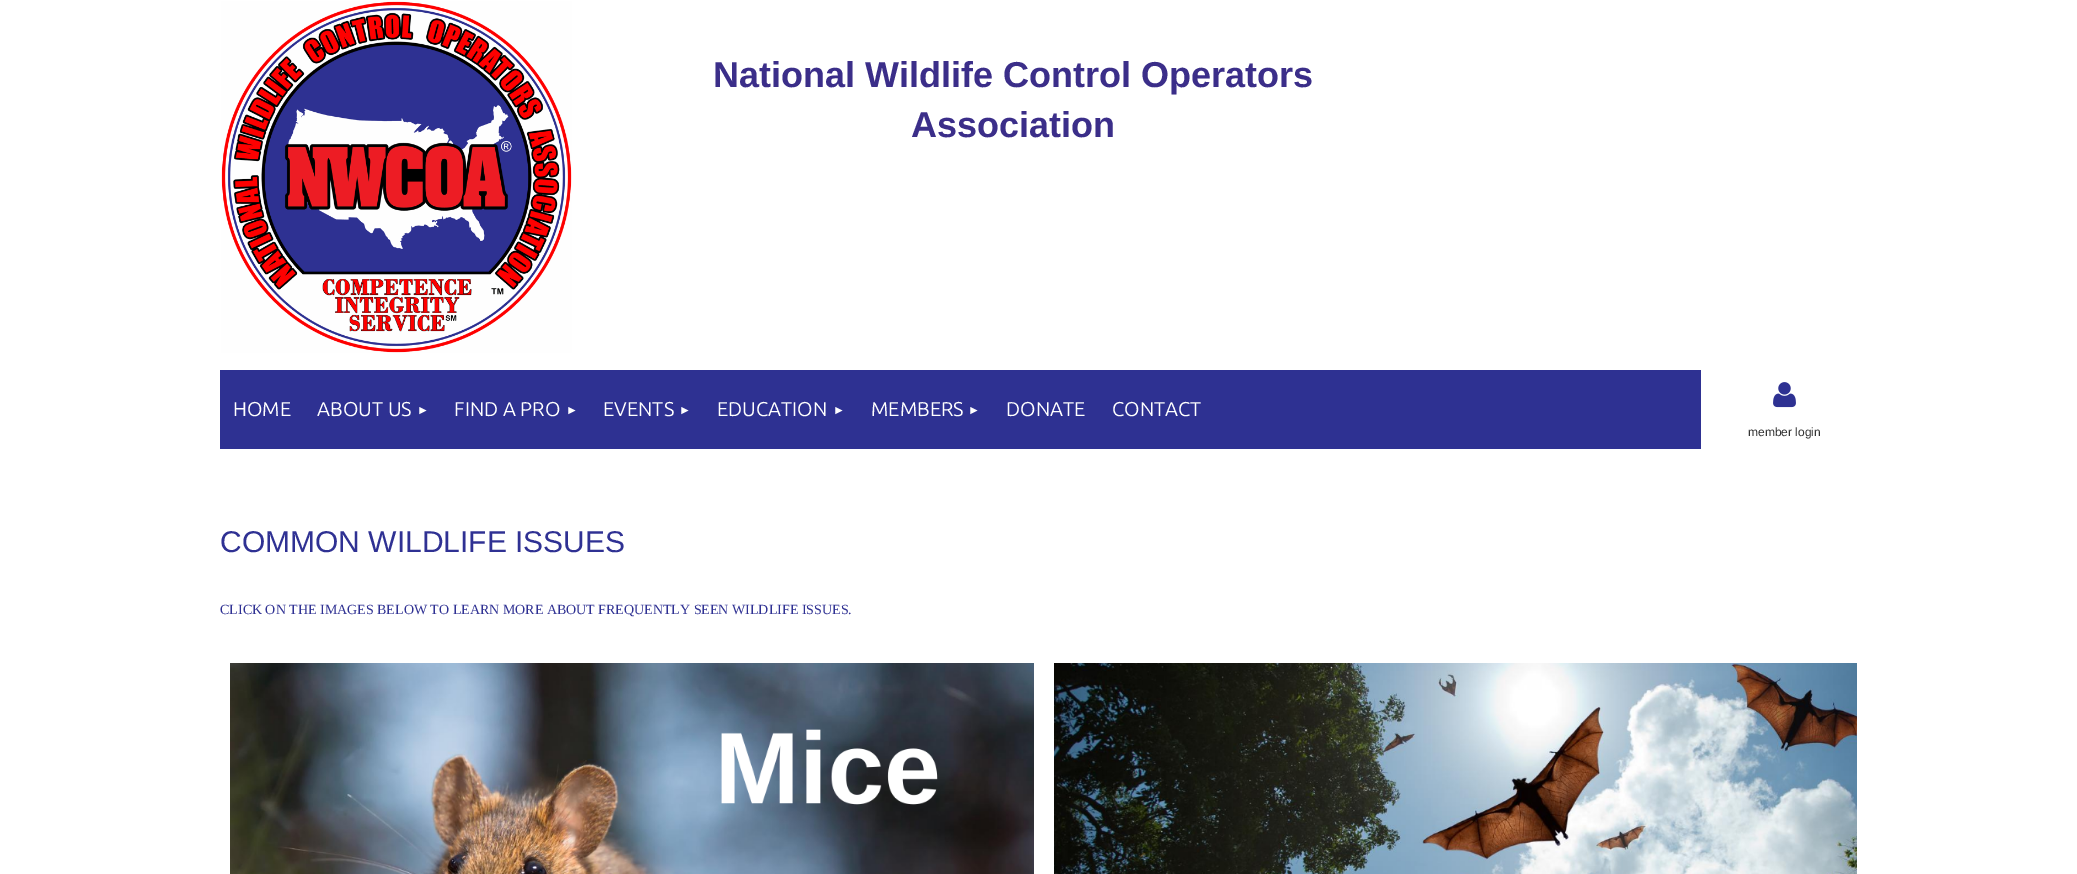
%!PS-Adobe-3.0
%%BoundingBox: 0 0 2077 874
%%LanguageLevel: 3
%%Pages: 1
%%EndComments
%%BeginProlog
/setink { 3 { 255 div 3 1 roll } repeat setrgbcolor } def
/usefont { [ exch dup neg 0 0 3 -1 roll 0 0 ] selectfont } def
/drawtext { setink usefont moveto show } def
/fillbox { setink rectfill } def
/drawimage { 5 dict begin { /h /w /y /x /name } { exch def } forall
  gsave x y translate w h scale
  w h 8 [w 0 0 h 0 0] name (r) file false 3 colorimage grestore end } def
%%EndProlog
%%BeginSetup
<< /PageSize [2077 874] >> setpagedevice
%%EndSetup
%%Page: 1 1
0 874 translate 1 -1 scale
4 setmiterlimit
0 0 2077 874 255 255 255 fillbox
(assets/img1.rgb) 221 1 351 352 drawimage
(National Wildlife Control Operators) 713 87 /LiberationSans-Bold 36 59 46 137 drawtext
(Association) 911 137 /LiberationSans-Bold 36 59 46 137 drawtext
220 370 1481 79 46 49 146 fillbox
(HOME) 233 416 /Ubuntu-Regular 20 255 255 255 drawtext
(ABOUT US) 317 416 /Ubuntu-Regular 20 255 255 255 drawtext
(►) 417 414 /LiberationSans-Regular 12 255 255 255 drawtext
(FIND A PRO) 454 416 /Ubuntu-Regular 20 255 255 255 drawtext
(►) 566 414 /LiberationSans-Regular 12 255 255 255 drawtext
(EVENTS) 603 416 /Ubuntu-Regular 20 255 255 255 drawtext
(►) 679 414 /LiberationSans-Regular 12 255 255 255 drawtext
(EDUCATION) 717 416 /Ubuntu-Regular 20 255 255 255 drawtext
(►) 833 414 /LiberationSans-Regular 12 255 255 255 drawtext
(MEMBERS) 871 416 /Ubuntu-Regular 20 255 255 255 drawtext
(►) 968 414 /LiberationSans-Regular 12 255 255 255 drawtext
(DONATE) 1006 416 /Ubuntu-Regular 20 255 255 255 drawtext
(CONTACT) 1112 416 /Ubuntu-Regular 20 255 255 255 drawtext
(assets/img2.rgb) 1773 382 23 26 drawimage
(member login) 1748 436 /LiberationSans-Regular 12 51 51 51 drawtext
(COMMON WILDLIFE ISSUES) 220 552 /LiberationSans-Regular 30 47 49 147 drawtext
(CLICK ON THE IMAGES BELOW TO LEARN MORE ABOUT FREQUENTLY SEEN WILDLIFE ISSUES.) 220 614 /LiberationSerif-Regular 14 47 49 147 drawtext
(assets/img3.rgb) 230 663 804 211 drawimage
(assets/img4.rgb) 1054 663 803 211 drawimage
showpage
%%EOF
